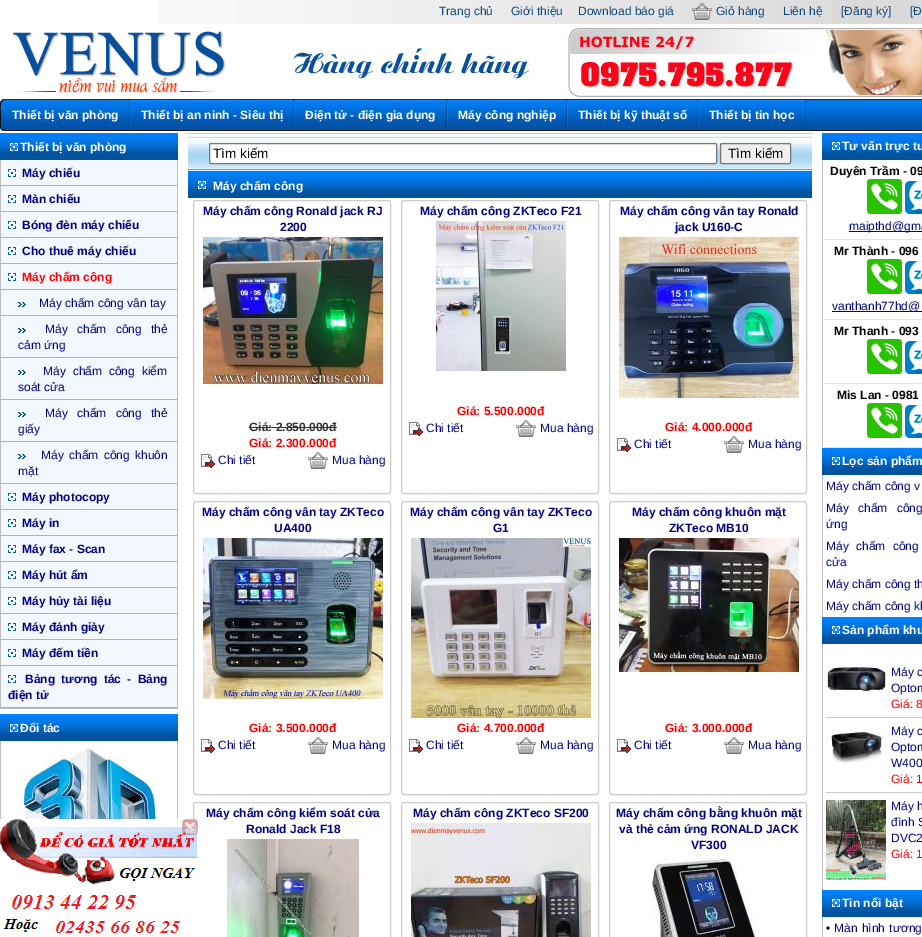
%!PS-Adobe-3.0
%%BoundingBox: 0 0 922 937
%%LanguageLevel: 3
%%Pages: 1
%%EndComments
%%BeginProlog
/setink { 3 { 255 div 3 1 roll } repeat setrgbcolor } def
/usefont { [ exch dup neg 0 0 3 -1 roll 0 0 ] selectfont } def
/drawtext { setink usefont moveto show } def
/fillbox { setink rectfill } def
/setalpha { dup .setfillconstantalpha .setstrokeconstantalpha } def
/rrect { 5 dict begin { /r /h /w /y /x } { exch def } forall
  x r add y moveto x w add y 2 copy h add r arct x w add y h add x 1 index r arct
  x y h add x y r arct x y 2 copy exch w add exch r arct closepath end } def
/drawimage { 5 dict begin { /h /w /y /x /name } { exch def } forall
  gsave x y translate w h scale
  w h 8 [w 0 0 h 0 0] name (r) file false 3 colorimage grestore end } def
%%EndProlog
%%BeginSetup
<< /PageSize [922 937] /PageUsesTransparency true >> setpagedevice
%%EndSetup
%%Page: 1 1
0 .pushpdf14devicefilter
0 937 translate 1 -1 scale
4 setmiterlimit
0 0 922 937 230 230 230 fillbox
0 0 159 24 255 255 255 fillbox
(assets/img1.rgb) 159 0 763 24 drawimage
(Trang chủ) 439 15 /LiberationSans-Regular 12 14 72 123 drawtext
(Giới thiệu) 511 15 /LiberationSans-Regular 12 14 72 123 drawtext
(Download báo giá) 578 15 /LiberationSans-Regular 12 14 72 123 drawtext
(assets/img2.rgb) 692 3 20 17 drawimage
(Giỏ hàng) 716 15 /LiberationSans-Regular 12 14 72 123 drawtext
(Liên hệ) 783 15 /LiberationSans-Regular 12 14 72 123 drawtext
([Đăng ký]) 841 15 /LiberationSans-Regular 12 14 72 123 drawtext
([Đ) 910 15 /LiberationSans-Regular 12 14 72 123 drawtext
0 24 922 75 255 255 255 fillbox
(assets/img3.rgb) 13 31 213 63 drawimage
(assets/img4.rgb) 291 24 631 73 drawimage
gsave
0 99 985 32 5 rrect clip newpath
gsave 0 99 moveto 5 99 lineto 5 100 lineto 0 100 lineto closepath clip newpath
<< /ShadingType 2 /ColorSpace /DeviceRGB /Coords [1 100 1 70] /Extend [true true] /Function << /FunctionType 3 /Domain [0 1] /Functions [<< /FunctionType 2 /Domain [0 1] /C0 [0.004 0.325 0.655] /C1 [0.004 0.325 0.655] /N 1 >> << /FunctionType 2 /Domain [0 1] /C0 [0.004 0.325 0.655] /C1 [0 0.502 0.984] /N 1 >>] /Bounds [0.17] /Encode [0 1 0 1] >> >> shfill grestore
gsave 0 100 moveto 922 100 lineto 922 130 lineto 0 130 lineto closepath clip newpath
<< /ShadingType 2 /ColorSpace /DeviceRGB /Coords [1 130 1 100] /Extend [true true] /Function << /FunctionType 3 /Domain [0 1] /Functions [<< /FunctionType 2 /Domain [0 1] /C0 [0.004 0.325 0.655] /C1 [0.004 0.325 0.655] /N 1 >> << /FunctionType 2 /Domain [0 1] /C0 [0.004 0.325 0.655] /C1 [0 0.502 0.984] /N 1 >>] /Bounds [0.17] /Encode [0 1 0 1] >> >> shfill grestore
grestore
gsave 698 100 moveto 699 100 lineto 699 130 lineto 698 130 lineto closepath clip newpath
<< /ShadingType 2 /ColorSpace /DeviceRGB /Coords [1 130 1 100] /Extend [true true] /Function << /FunctionType 3 /Domain [0 1] /Functions [<< /FunctionType 2 /Domain [0 1] /C0 [0.055 0.361 0.671] /C1 [0.055 0.361 0.671] /N 1 >> << /FunctionType 2 /Domain [0 1] /C0 [0.055 0.361 0.671] /C1 [0.051 0.525 0.984] /N 1 >>] /Bounds [0.17] /Encode [0 1 0 1] >> >> shfill grestore
gsave 805 100 moveto 806 100 lineto 806 130 lineto 805 130 lineto closepath clip newpath
<< /ShadingType 2 /ColorSpace /DeviceRGB /Coords [1 130 1 100] /Extend [true true] /Function << /FunctionType 3 /Domain [0 1] /Functions [<< /FunctionType 2 /Domain [0 1] /C0 [0.004 0.259 0.525] /C1 [0.004 0.259 0.525] /N 1 >> << /FunctionType 2 /Domain [0 1] /C0 [0.004 0.259 0.525] /C1 [0 0.4 0.788] /N 1 >>] /Bounds [0.17] /Encode [0 1 0 1] >> >> shfill grestore
gsave 567 100 moveto 568 100 lineto 568 130 lineto 567 130 lineto closepath clip newpath
<< /ShadingType 2 /ColorSpace /DeviceRGB /Coords [1 130 1 100] /Extend [true true] /Function << /FunctionType 3 /Domain [0 1] /Functions [<< /FunctionType 2 /Domain [0 1] /C0 [0.055 0.361 0.671] /C1 [0.055 0.361 0.671] /N 1 >> << /FunctionType 2 /Domain [0 1] /C0 [0.055 0.361 0.671] /C1 [0.051 0.525 0.984] /N 1 >>] /Bounds [0.17] /Encode [0 1 0 1] >> >> shfill grestore
gsave 697 100 moveto 698 100 lineto 698 130 lineto 697 130 lineto closepath clip newpath
<< /ShadingType 2 /ColorSpace /DeviceRGB /Coords [1 130 1 100] /Extend [true true] /Function << /FunctionType 3 /Domain [0 1] /Functions [<< /FunctionType 2 /Domain [0 1] /C0 [0.004 0.259 0.525] /C1 [0.004 0.259 0.525] /N 1 >> << /FunctionType 2 /Domain [0 1] /C0 [0.004 0.259 0.525] /C1 [0 0.4 0.788] /N 1 >>] /Bounds [0.17] /Encode [0 1 0 1] >> >> shfill grestore
gsave 447 100 moveto 448 100 lineto 448 130 lineto 447 130 lineto closepath clip newpath
<< /ShadingType 2 /ColorSpace /DeviceRGB /Coords [1 130 1 100] /Extend [true true] /Function << /FunctionType 3 /Domain [0 1] /Functions [<< /FunctionType 2 /Domain [0 1] /C0 [0.055 0.361 0.671] /C1 [0.055 0.361 0.671] /N 1 >> << /FunctionType 2 /Domain [0 1] /C0 [0.055 0.361 0.671] /C1 [0.051 0.525 0.984] /N 1 >>] /Bounds [0.17] /Encode [0 1 0 1] >> >> shfill grestore
gsave 566 100 moveto 567 100 lineto 567 130 lineto 566 130 lineto closepath clip newpath
<< /ShadingType 2 /ColorSpace /DeviceRGB /Coords [1 130 1 100] /Extend [true true] /Function << /FunctionType 3 /Domain [0 1] /Functions [<< /FunctionType 2 /Domain [0 1] /C0 [0.004 0.259 0.525] /C1 [0.004 0.259 0.525] /N 1 >> << /FunctionType 2 /Domain [0 1] /C0 [0.004 0.259 0.525] /C1 [0 0.4 0.788] /N 1 >>] /Bounds [0.17] /Encode [0 1 0 1] >> >> shfill grestore
gsave 294 100 moveto 295 100 lineto 295 130 lineto 294 130 lineto closepath clip newpath
<< /ShadingType 2 /ColorSpace /DeviceRGB /Coords [1 130 1 100] /Extend [true true] /Function << /FunctionType 3 /Domain [0 1] /Functions [<< /FunctionType 2 /Domain [0 1] /C0 [0.055 0.361 0.671] /C1 [0.055 0.361 0.671] /N 1 >> << /FunctionType 2 /Domain [0 1] /C0 [0.055 0.361 0.671] /C1 [0.051 0.525 0.984] /N 1 >>] /Bounds [0.17] /Encode [0 1 0 1] >> >> shfill grestore
gsave 446 100 moveto 447 100 lineto 447 130 lineto 446 130 lineto closepath clip newpath
<< /ShadingType 2 /ColorSpace /DeviceRGB /Coords [1 130 1 100] /Extend [true true] /Function << /FunctionType 3 /Domain [0 1] /Functions [<< /FunctionType 2 /Domain [0 1] /C0 [0.004 0.259 0.525] /C1 [0.004 0.259 0.525] /N 1 >> << /FunctionType 2 /Domain [0 1] /C0 [0.004 0.259 0.525] /C1 [0 0.4 0.788] /N 1 >>] /Bounds [0.17] /Encode [0 1 0 1] >> >> shfill grestore
gsave 130 100 moveto 131 100 lineto 131 130 lineto 130 130 lineto closepath clip newpath
<< /ShadingType 2 /ColorSpace /DeviceRGB /Coords [1 130 1 100] /Extend [true true] /Function << /FunctionType 3 /Domain [0 1] /Functions [<< /FunctionType 2 /Domain [0 1] /C0 [0.055 0.361 0.671] /C1 [0.055 0.361 0.671] /N 1 >> << /FunctionType 2 /Domain [0 1] /C0 [0.055 0.361 0.671] /C1 [0.051 0.525 0.984] /N 1 >>] /Bounds [0.17] /Encode [0 1 0 1] >> >> shfill grestore
gsave 293 100 moveto 294 100 lineto 294 130 lineto 293 130 lineto closepath clip newpath
<< /ShadingType 2 /ColorSpace /DeviceRGB /Coords [1 130 1 100] /Extend [true true] /Function << /FunctionType 3 /Domain [0 1] /Functions [<< /FunctionType 2 /Domain [0 1] /C0 [0.004 0.259 0.525] /C1 [0.004 0.259 0.525] /N 1 >> << /FunctionType 2 /Domain [0 1] /C0 [0.004 0.259 0.525] /C1 [0 0.4 0.788] /N 1 >>] /Bounds [0.17] /Encode [0 1 0 1] >> >> shfill grestore
gsave 129 100 moveto 130 100 lineto 130 130 lineto 129 130 lineto closepath clip newpath
<< /ShadingType 2 /ColorSpace /DeviceRGB /Coords [1 130 1 100] /Extend [true true] /Function << /FunctionType 3 /Domain [0 1] /Functions [<< /FunctionType 2 /Domain [0 1] /C0 [0.004 0.259 0.525] /C1 [0.004 0.259 0.525] /N 1 >> << /FunctionType 2 /Domain [0 1] /C0 [0.004 0.259 0.525] /C1 [0 0.4 0.788] /N 1 >>] /Bounds [0.17] /Encode [0 1 0 1] >> >> shfill grestore
gsave
0 99 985 32 5 rrect clip newpath
gsave 0 130 moveto 5 130 lineto 5 131 lineto 0 131 lineto closepath clip newpath
<< /ShadingType 2 /ColorSpace /DeviceRGB /Coords [1 160 1 130] /Extend [true true] /Function << /FunctionType 3 /Domain [0 1] /Functions [<< /FunctionType 2 /Domain [0 1] /C0 [0.004 0.325 0.655] /C1 [0.004 0.325 0.655] /N 1 >> << /FunctionType 2 /Domain [0 1] /C0 [0.004 0.325 0.655] /C1 [0 0.502 0.984] /N 1 >>] /Bounds [0.17] /Encode [0 1 0 1] >> >> shfill grestore
grestore
43 46 48 setink
2 101 moveto 5 99.5 lineto 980 99.5 lineto 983 101 lineto stroke
18 19 20 setink
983 101 moveto 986 103.5 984.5 112 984.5 115 curveto 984.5 122.5 lineto 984.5 125.5 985 130 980.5 130.5 curveto 5 130.5 lineto 2 129.5 lineto 0.5 126.5 lineto 0.5 115 lineto 0.5 112 -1 103.5 2 101 curveto stroke
0.1 setalpha
2 100 127 1 255 255 255 fillbox
0.05 setalpha
1 100 1 30 255 255 255 fillbox
1 setalpha
(Thiết bị văn phòng) 12 119 /LiberationSans-Bold 12 255 255 255 drawtext
131 100 162 1 26 140 250 fillbox
(Thiết bị an ninh - Siêu thị) 141 119 /LiberationSans-Bold 12 255 255 255 drawtext
295 100 151 1 26 140 250 fillbox
(Điện tử - điện gia dụng) 305 119 /LiberationSans-Bold 12 255 255 255 drawtext
448 100 118 1 26 140 250 fillbox
(Máy công nghiệp) 458 119 /LiberationSans-Bold 12 255 255 255 drawtext
568 100 129 1 26 140 250 fillbox
(Thiết bị kỹ thuật số) 578 119 /LiberationSans-Bold 12 255 255 255 drawtext
699 100 106 1 26 140 250 fillbox
(Thiết bị tin học) 709 119 /LiberationSans-Bold 12 255 255 255 drawtext
0 131 922 806 255 255 255 fillbox
1 160 176 547 243 248 254 fillbox
(assets/img5.rgb) 0 133 178 27 drawimage
(assets/img6.rgb) 10 143 8 8 drawimage
(Thiết bị văn phòng) 20 151 /LiberationSans-Bold 12 255 255 255 drawtext
177 160 1 549 191 191 191 fillbox
0 708 178 1 191 191 191 fillbox
0 160 1 549 191 191 191 fillbox
1 185 176 1 146 188 213 fillbox
(assets/img7.rgb) 8 169 8 8 drawimage
(Máy chiếu) 22 177 /LiberationSans-Bold 12 0 0 128 drawtext
1 211 176 1 146 188 213 fillbox
(assets/img7.rgb) 8 195 8 8 drawimage
(Màn chiếu) 22 203 /LiberationSans-Bold 12 0 0 128 drawtext
1 237 176 1 146 188 213 fillbox
(assets/img7.rgb) 8 221 8 8 drawimage
(Bóng đèn máy chiếu) 22 229 /LiberationSans-Bold 12 0 0 128 drawtext
1 263 176 1 146 188 213 fillbox
(assets/img7.rgb) 8 247 8 8 drawimage
(Cho thuê máy chiếu) 22 255 /LiberationSans-Bold 12 0 0 128 drawtext
1 289 176 1 146 188 213 fillbox
(assets/img7.rgb) 8 273 8 8 drawimage
(Máy chấm công) 22 281 /LiberationSans-Bold 12 255 0 0 drawtext
1 315 176 1 146 188 213 fillbox
(assets/img8.rgb) 18 302 8 5 drawimage
(Máy chấm công vân tay) 39 307 /LiberationSans-Regular 12 0 0 128 drawtext
1 357 176 1 146 188 213 fillbox
(assets/img8.rgb) 18 328 8 5 drawimage
0 0 128 setink
45 333 moveto 6 0 32 (Máy chấm công thẻ) widthshow
(cảm ứng) 18 349 /LiberationSans-Regular 12 0 0 128 drawtext
1 399 176 1 146 188 213 fillbox
(assets/img8.rgb) 18 370 8 5 drawimage
0 0 128 setink
43 375 moveto 3.5 0 32 (Máy chấm công kiểm) widthshow
(soát cửa) 18 391 /LiberationSans-Regular 12 0 0 128 drawtext
1 441 176 1 146 188 213 fillbox
(assets/img8.rgb) 18 412 8 5 drawimage
0 0 128 setink
45 417 moveto 6 0 32 (Máy chấm công thẻ) widthshow
(giấy) 18 433 /LiberationSans-Regular 12 0 0 128 drawtext
1 483 176 1 146 188 213 fillbox
(assets/img8.rgb) 18 454 8 5 drawimage
0 0 128 setink
41 459 moveto 2 0 32 (Máy chấm công khuôn) widthshow
(mặt) 18 475 /LiberationSans-Regular 12 0 0 128 drawtext
1 509 176 1 146 188 213 fillbox
(assets/img7.rgb) 8 493 8 8 drawimage
(Máy photocopy) 22 501 /LiberationSans-Bold 12 0 0 128 drawtext
1 535 176 1 146 188 213 fillbox
(assets/img7.rgb) 8 519 8 8 drawimage
(Máy in) 22 527 /LiberationSans-Bold 12 0 0 128 drawtext
1 561 176 1 146 188 213 fillbox
(assets/img7.rgb) 8 545 8 8 drawimage
(Máy fax - Scan) 22 553 /LiberationSans-Bold 12 0 0 128 drawtext
1 587 176 1 146 188 213 fillbox
(assets/img7.rgb) 8 571 8 8 drawimage
(Máy hút ẩm) 22 579 /LiberationSans-Bold 12 0 0 128 drawtext
1 613 176 1 146 188 213 fillbox
(assets/img7.rgb) 8 597 8 8 drawimage
(Máy hủy tài liệu) 22 605 /LiberationSans-Bold 12 0 0 128 drawtext
1 639 176 1 146 188 213 fillbox
(assets/img7.rgb) 8 623 8 8 drawimage
(Máy đánh giày) 22 631 /LiberationSans-Bold 12 0 0 128 drawtext
1 665 176 1 146 188 213 fillbox
(assets/img7.rgb) 8 649 8 8 drawimage
(Máy đếm tiền) 22 657 /LiberationSans-Bold 12 0 0 128 drawtext
1 707 176 1 146 188 213 fillbox
(assets/img7.rgb) 8 675 8 8 drawimage
0 0 128 setink
25 683 moveto 3 0 32 (Bảng tương tác - Bảng) widthshow
(điện tử) 8 699 /LiberationSans-Bold 12 0 0 128 drawtext
(assets/img5.rgb) 0 714 178 27 drawimage
(assets/img6.rgb) 10 724 8 8 drawimage
(Đối tác) 20 732 /LiberationSans-Bold 12 255 255 255 drawtext
177 741 1 78 191 191 191 fillbox
0 741 1 78 191 191 191 fillbox
(assets/img9.rgb) 13 745 153 74 drawimage
186 133 628 1 204 204 204 fillbox
(assets/img10.rgb) 188 136 624 35 drawimage
255 255 255 setink
209.5 143.5 507 20 1.5 rrect gsave fill grestore
118 118 118 setink
stroke
(Tìm kiếm) 213 158 /LiberationSans-Regular 13.5 0 0 0 drawtext
239 239 239 setink
720.5 143.5 70 20 1.5 rrect gsave fill grestore
118 118 118 setink
stroke
(Tìm kiếm) 728 158 /LiberationSans-Regular 13.5 0 0 0 drawtext
(assets/img11.rgb) 188 171 624 27 drawimage
(assets/img6.rgb) 198 181 8 8 drawimage
(Máy chấm công) 213 190 /LiberationSans-Bold 12 255 255 255 drawtext
204 204 204 setink
193.5 200.5 197 293 2.5 rrect stroke
(Máy chấm công Ronald jack RJ) 203 215 /LiberationSans-Bold 12 0 0 128 drawtext
(2200) 280 231 /LiberationSans-Bold 12 0 0 128 drawtext
(assets/img12.rgb) 203 237 180 147 drawimage
(Giá: 2.850.000đ) 249 431 /LiberationSans-Bold 12 51 51 51 drawtext
249 427 88 1 51 51 51 fillbox
(Giá: 2.300.000đ) 249 447 /LiberationSans-Bold 12 255 0 0 drawtext
(assets/img13.rgb) 201 454 14 14 drawimage
(Chi tiết) 218 464 /LiberationSans-Regular 12 0 0 128 drawtext
(assets/img14.rgb) 308 452 20 17 drawimage
(Mua hàng) 332 464 /LiberationSans-Regular 12 0 0 128 drawtext
204 204 204 setink
401.5 200.5 197 293 2.5 rrect stroke
(Máy chấm công ZKTeco F21) 420 215 /LiberationSans-Bold 12 0 0 128 drawtext
(assets/img15.rgb) 436 221 130 150 drawimage
(Giá: 5.500.000đ) 457 415 /LiberationSans-Bold 12 255 0 0 drawtext
(assets/img13.rgb) 409 422 14 14 drawimage
(Chi tiết) 426 432 /LiberationSans-Regular 12 0 0 128 drawtext
(assets/img14.rgb) 516 420 20 17 drawimage
(Mua hàng) 540 432 /LiberationSans-Regular 12 0 0 128 drawtext
204 204 204 setink
609.5 200.5 197 293 2.5 rrect stroke
(Máy chấm công vân tay Ronald) 620 215 /LiberationSans-Bold 12 0 0 128 drawtext
(jack U160-C) 675 231 /LiberationSans-Bold 12 0 0 128 drawtext
(assets/img16.rgb) 619 237 180 161 drawimage
(Giá: 4.000.000đ) 665 431 /LiberationSans-Bold 12 255 0 0 drawtext
(assets/img13.rgb) 617 438 14 14 drawimage
(Chi tiết) 634 448 /LiberationSans-Regular 12 0 0 128 drawtext
(assets/img14.rgb) 724 436 20 17 drawimage
(Mua hàng) 748 448 /LiberationSans-Regular 12 0 0 128 drawtext
204 204 204 setink
193.5 501.5 197 293 2.5 rrect stroke
(Máy chấm công vân tay ZKTeco) 202 516 /LiberationSans-Bold 12 0 0 128 drawtext
(UA400) 274 532 /LiberationSans-Bold 12 0 0 128 drawtext
(assets/img17.rgb) 203 538 180 161 drawimage
(Giá: 3.500.000đ) 249 732 /LiberationSans-Bold 12 255 0 0 drawtext
(assets/img13.rgb) 201 739 14 14 drawimage
(Chi tiết) 218 749 /LiberationSans-Regular 12 0 0 128 drawtext
(assets/img14.rgb) 308 737 20 17 drawimage
(Mua hàng) 332 749 /LiberationSans-Regular 12 0 0 128 drawtext
204 204 204 setink
401.5 501.5 197 293 2.5 rrect stroke
(Máy chấm công vân tay ZKTeco) 410 516 /LiberationSans-Bold 12 0 0 128 drawtext
(G1) 493 532 /LiberationSans-Bold 12 0 0 128 drawtext
(assets/img18.rgb) 411 538 180 180 drawimage
(Giá: 4.700.000đ) 457 732 /LiberationSans-Bold 12 255 0 0 drawtext
(assets/img13.rgb) 409 739 14 14 drawimage
(Chi tiết) 426 749 /LiberationSans-Regular 12 0 0 128 drawtext
(assets/img14.rgb) 516 737 20 17 drawimage
(Mua hàng) 540 749 /LiberationSans-Regular 12 0 0 128 drawtext
204 204 204 setink
609.5 501.5 197 293 2.5 rrect stroke
(Máy chấm công khuôn mặt) 632 516 /LiberationSans-Bold 12 0 0 128 drawtext
(ZKTeco MB10) 669 532 /LiberationSans-Bold 12 0 0 128 drawtext
(assets/img19.rgb) 619 538 180 134 drawimage
(Giá: 3.000.000đ) 665 732 /LiberationSans-Bold 12 255 0 0 drawtext
(assets/img13.rgb) 617 739 14 14 drawimage
(Chi tiết) 634 749 /LiberationSans-Regular 12 0 0 128 drawtext
(assets/img14.rgb) 724 737 20 17 drawimage
(Mua hàng) 748 749 /LiberationSans-Regular 12 0 0 128 drawtext
204 204 204 setink
193.5 802.5 197 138 2.5 rrect stroke
(Máy chấm công kiểm soát cửa) 206 817 /LiberationSans-Bold 12 0 0 128 drawtext
(Ronald Jack F18) 246 833 /LiberationSans-Bold 12 0 0 128 drawtext
(assets/img20.rgb) 227 839 132 98 drawimage
204 204 204 setink
401.5 802.5 197 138 2.5 rrect stroke
(Máy chấm công ZKTeco SF200) 413 817 /LiberationSans-Bold 12 0 0 128 drawtext
(assets/img21.rgb) 411 823 180 114 drawimage
204 204 204 setink
609.5 802.5 197 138 2.5 rrect stroke
(Máy chấm công bằng khuôn mặt) 616 817 /LiberationSans-Bold 12 0 0 128 drawtext
(và thẻ cảm ứng RONALD JACK) 619 833 /LiberationSans-Bold 12 0 0 128 drawtext
(VF300) 691 849 /LiberationSans-Bold 12 0 0 128 drawtext
(assets/img22.rgb) 652 855 106 82 drawimage
822 160 1 777 191 191 191 fillbox
(assets/img23.rgb) 822 133 100 27 drawimage
(assets/img6.rgb) 832 142 8 8 drawimage
(Tư vấn trực tu) 842 150 /LiberationSans-Bold 12 255 255 255 drawtext
822 239 100 1 227 227 227 fillbox
(Duyên Trầm - 09) 830 175 /LiberationSans-Bold 12 0 0 0 drawtext
(assets/img24.rgb) 867 179 35 35 drawimage
(assets/img25.rgb) 905 181 17 33 drawimage
849 231 73 1 0 0 128 fillbox
(maipthd@gma) 849 230 /LiberationSans-Regular 12 0 0 128 drawtext
822 319 100 1 227 227 227 fillbox
(Mr Thành - 096) 834 255 /LiberationSans-Bold 12 0 0 0 drawtext
(assets/img24.rgb) 867 259 35 35 drawimage
(assets/img25.rgb) 905 261 17 33 drawimage
832 311 90 1 0 0 128 fillbox
(vanthanh77hd@) 832 310 /LiberationSans-Regular 12 0 0 128 drawtext
822 383 100 1 227 227 227 fillbox
(Mr Thanh - 093) 834 335 /LiberationSans-Bold 12 0 0 0 drawtext
(assets/img24.rgb) 867 339 35 35 drawimage
(assets/img25.rgb) 905 341 17 33 drawimage
822 447 100 1 227 227 227 fillbox
(Mis Lan - 0981) 837 399 /LiberationSans-Bold 12 0 0 0 drawtext
(assets/img24.rgb) 867 403 35 35 drawimage
(assets/img25.rgb) 905 405 17 33 drawimage
(assets/img23.rgb) 822 448 100 27 drawimage
(assets/img6.rgb) 832 457 8 8 drawimage
(Lọc sản phẩm) 842 465 /LiberationSans-Bold 12 255 255 255 drawtext
(Máy chấm công v) 826 490 /LiberationSans-Regular 12 0 0 128 drawtext
826 512 moveto 6 0 32 (Máy chấm công) widthshow
(ứng) 826 528 /LiberationSans-Regular 12 0 0 128 drawtext
826 550 moveto 4 0 32 (Máy chấm công) widthshow
(cửa) 826 566 /LiberationSans-Regular 12 0 0 128 drawtext
(Máy chấm công th) 826 588 /LiberationSans-Regular 12 0 0 128 drawtext
(Máy chấm công kh) 826 610 /LiberationSans-Regular 12 0 0 128 drawtext
(assets/img23.rgb) 822 617 100 27 drawimage
(assets/img6.rgb) 832 626 8 8 drawimage
(Sản phẩm khu) 842 634 /LiberationSans-Bold 12 255 255 255 drawtext
826 717 96 1 204 204 204 fillbox
(assets/img26.rgb) 826 667 60 25 drawimage
(Máy c) 891 676 /LiberationSans-Regular 12 0 0 128 drawtext
(Optom) 891 692 /LiberationSans-Regular 12 0 0 128 drawtext
(Giá: 8) 891 708 /LiberationSans-Regular 12 255 0 0 drawtext
826 792 96 1 204 204 204 fillbox
(assets/img27.rgb) 831 731 51 32 drawimage
(Máy c) 891 735 /LiberationSans-Regular 12 0 0 128 drawtext
(Optom) 891 751 /LiberationSans-Regular 12 0 0 128 drawtext
(W400) 891 767 /LiberationSans-Regular 12 0 0 128 drawtext
(Giá: 1) 891 783 /LiberationSans-Regular 12 255 0 0 drawtext
(assets/img28.rgb) 826 800 60 80 drawimage
(Máy h) 891 810 /LiberationSans-Regular 12 0 0 128 drawtext
(đình S) 891 826 /LiberationSans-Regular 12 0 0 128 drawtext
(DVC2) 891 842 /LiberationSans-Regular 12 0 0 128 drawtext
(Giá: 1) 891 858 /LiberationSans-Regular 12 255 0 0 drawtext
(assets/img23.rgb) 822 890 100 27 drawimage
(assets/img6.rgb) 832 899 8 8 drawimage
(Tin nổi bật) 842 907 /LiberationSans-Bold 12 255 255 255 drawtext
(•) 826 932 /LiberationSans-Regular 12 0 0 0 drawtext
0 0 128 setink
834 932 moveto 1 0 32 (Màn hình tương) widthshow
(assets/img29.rgb) 0 819 197 118 drawimage
(assets/img30.rgb) 182 819 16 16 drawimage
.poppdf14devicefilter showpage
%%EOF
